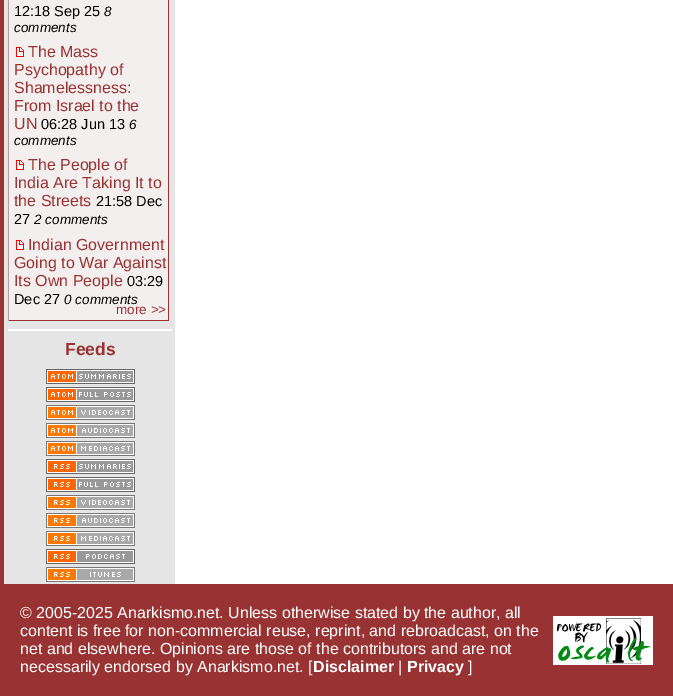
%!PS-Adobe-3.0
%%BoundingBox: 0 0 673 696
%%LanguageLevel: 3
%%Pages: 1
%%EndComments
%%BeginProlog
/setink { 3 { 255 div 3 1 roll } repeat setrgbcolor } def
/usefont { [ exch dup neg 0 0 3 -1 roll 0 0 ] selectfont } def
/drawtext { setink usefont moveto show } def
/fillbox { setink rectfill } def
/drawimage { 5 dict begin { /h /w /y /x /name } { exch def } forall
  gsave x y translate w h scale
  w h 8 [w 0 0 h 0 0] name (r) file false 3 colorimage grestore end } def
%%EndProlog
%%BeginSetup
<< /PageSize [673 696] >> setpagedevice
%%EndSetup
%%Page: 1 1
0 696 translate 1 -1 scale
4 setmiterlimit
0 0 673 696 255 255 255 fillbox
4 0 171 584 229 229 229 fillbox
0 0 4 586 153 51 51 fillbox
9 0 159 320 243 239 239 fillbox
168 0 1 321 153 51 51 fillbox
8 320 161 1 153 51 51 fillbox
8 0 1 321 187 153 153 fillbox
(12:18 Sep 25) 14 16 /LiberationSans-Regular 14.5 0 0 0 drawtext
(8) 104 16 /LiberationSans-Italic 13.5 0 0 0 drawtext
(comments) 14 32 /LiberationSans-Italic 13.5 0 0 0 drawtext
(assets/img1.rgb) 16 47 8 10 drawimage
(The Mass) 28 57 /LiberationSans-Regular 16 153 51 51 drawtext
(Psychopathy of) 14 75 /LiberationSans-Regular 16 153 51 51 drawtext
(Shamelessness:) 14 93 /LiberationSans-Regular 16 153 51 51 drawtext
(From Israel to the) 14 111 /LiberationSans-Regular 16 153 51 51 drawtext
(UN) 14 129 /LiberationSans-Regular 16 153 51 51 drawtext
(06:28 Jun 13) 41 129 /LiberationSans-Regular 14.5 0 0 0 drawtext
(6) 129 129 /LiberationSans-Italic 13.5 0 0 0 drawtext
(comments) 14 145 /LiberationSans-Italic 13.5 0 0 0 drawtext
(assets/img1.rgb) 16 160 8 10 drawimage
(The People of) 28 170 /LiberationSans-Regular 16 153 51 51 drawtext
(India Are Taking It to) 14 188 /LiberationSans-Regular 16 153 51 51 drawtext
(the Streets) 14 206 /LiberationSans-Regular 16 153 51 51 drawtext
(21:58 Dec) 96 206 /LiberationSans-Regular 14.5 0 0 0 drawtext
(27) 14 224 /LiberationSans-Regular 14.5 0 0 0 drawtext
(2 comments) 34 224 /LiberationSans-Italic 13.5 0 0 0 drawtext
(assets/img1.rgb) 16 240 8 10 drawimage
(Indian Government) 28 250 /LiberationSans-Regular 16 153 51 51 drawtext
(Going to War Against) 14 268 /LiberationSans-Regular 16 153 51 51 drawtext
(Its Own People) 14 286 /LiberationSans-Regular 16 153 51 51 drawtext
(03:29) 127 286 /LiberationSans-Regular 14.5 0 0 0 drawtext
(Dec 27) 14 304 /LiberationSans-Regular 14.5 0 0 0 drawtext
(0 comments) 64 304 /LiberationSans-Italic 13.5 0 0 0 drawtext
(more >>) 116 314 /LiberationSans-Regular 13.5 153 51 51 drawtext
8 329 164 2 255 255 255 fillbox
(Feeds) 65 355 /LiberationSans-Bold 17.5 153 51 51 drawtext
(assets/img2.rgb) 46 369 89 15 drawimage
(assets/img3.rgb) 46 387 89 15 drawimage
(assets/img4.rgb) 46 405 89 15 drawimage
(assets/img5.rgb) 46 423 89 15 drawimage
(assets/img6.rgb) 46 441 89 15 drawimage
(assets/img7.rgb) 46 459 89 15 drawimage
(assets/img8.rgb) 46 477 89 15 drawimage
(assets/img9.rgb) 46 495 89 15 drawimage
(assets/img10.rgb) 46 513 89 15 drawimage
(assets/img11.rgb) 46 531 89 15 drawimage
(assets/img12.rgb) 46 549 89 15 drawimage
(assets/img13.rgb) 46 567 89 15 drawimage
0 584 673 112 153 51 51 fillbox
(© 2005-2025 Anarkismo.net. Unless otherwise stated by the author, all) 20 618 /LiberationSans-Regular 16 255 255 255 drawtext
(content is free for non-commercial reuse, reprint, and rebroadcast, on the) 20 636 /LiberationSans-Regular 16 255 255 255 drawtext
(net and elsewhere. Opinions are those of the contributors and are not) 20 654 /LiberationSans-Regular 16 255 255 255 drawtext
(necessarily endorsed by Anarkismo.net. [) 20 672 /LiberationSans-Regular 16 255 255 255 drawtext
(Disclaimer) 313 672 /LiberationSans-Bold 16 255 255 255 drawtext
(|) 398 672 /LiberationSans-Regular 16 255 255 255 drawtext
(Privacy) 407 672 /LiberationSans-Bold 16 255 255 255 drawtext
(]) 468 672 /LiberationSans-Regular 16 255 255 255 drawtext
(assets/img14.rgb) 553 616 100 49 drawimage
showpage
%%EOF
